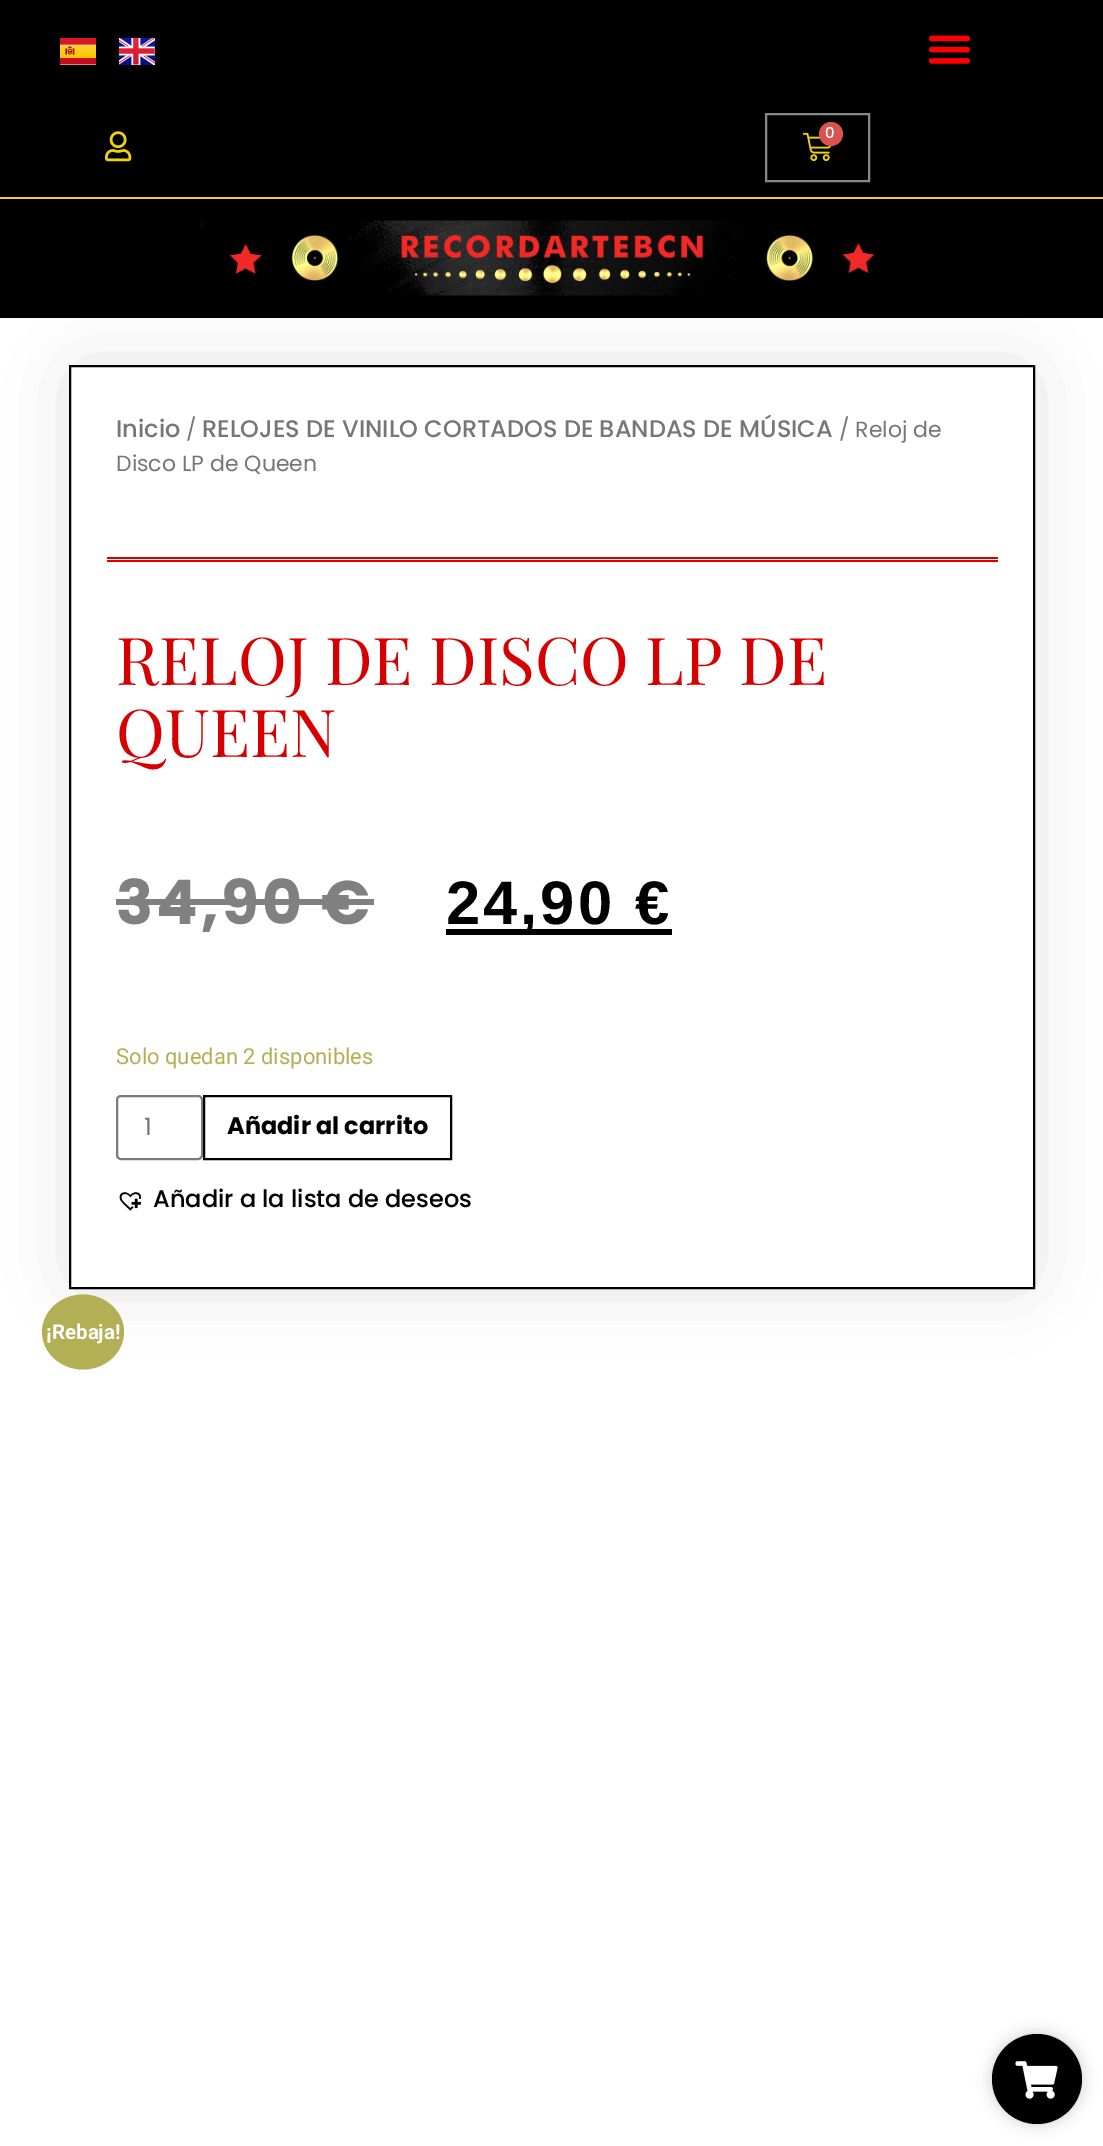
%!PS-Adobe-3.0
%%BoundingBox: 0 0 1103 2146
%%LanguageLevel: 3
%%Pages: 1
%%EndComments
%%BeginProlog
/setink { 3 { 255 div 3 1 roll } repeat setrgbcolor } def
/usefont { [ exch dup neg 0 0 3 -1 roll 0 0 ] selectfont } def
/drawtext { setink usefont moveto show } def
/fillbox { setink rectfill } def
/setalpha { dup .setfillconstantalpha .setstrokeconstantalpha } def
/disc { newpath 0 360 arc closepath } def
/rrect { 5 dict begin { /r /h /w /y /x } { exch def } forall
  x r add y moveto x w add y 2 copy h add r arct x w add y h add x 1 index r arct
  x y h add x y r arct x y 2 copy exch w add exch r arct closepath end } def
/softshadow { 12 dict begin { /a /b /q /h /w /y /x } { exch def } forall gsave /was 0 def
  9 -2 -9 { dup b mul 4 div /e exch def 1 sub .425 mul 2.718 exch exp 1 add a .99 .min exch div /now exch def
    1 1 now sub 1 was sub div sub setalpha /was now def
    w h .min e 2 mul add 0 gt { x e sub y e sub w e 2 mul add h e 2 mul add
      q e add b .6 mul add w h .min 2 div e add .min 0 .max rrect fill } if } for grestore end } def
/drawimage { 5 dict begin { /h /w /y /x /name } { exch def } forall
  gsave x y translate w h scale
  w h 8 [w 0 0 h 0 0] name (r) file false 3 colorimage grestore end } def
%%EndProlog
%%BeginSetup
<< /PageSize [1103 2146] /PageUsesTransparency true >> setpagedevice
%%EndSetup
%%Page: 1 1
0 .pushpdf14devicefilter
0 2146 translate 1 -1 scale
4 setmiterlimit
0 0 1103 2146 255 255 255 fillbox
0 0 1103 197 0 0 0 fillbox
(assets/img1.rgb) 60 38 36 27 drawimage
(assets/img2.rgb) 119 38 36 27 drawimage
(assets/img3.rgb) 928 35 43 29 drawimage
(assets/img4.rgb) 105 131 27 31 drawimage
129 138 145 setink
2 setlinewidth
766 114 103 67 rectstroke
(assets/img5.rgb) 802 132 30 30 drawimage
217 83 79 setink
831 134 12 disc fill
(0) 825 138 /Poppins-Medium 15 255 255 255 drawtext
0 199 1103 119 0 0 0 fillbox
0 197 1103 2 238 210 18 fillbox
(assets/img6.rgb) 200 220 697 76 drawimage
gsave
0 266 moveto 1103 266 lineto 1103 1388 lineto 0 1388 lineto closepath 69 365 moveto 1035 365 lineto 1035 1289 lineto 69 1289 lineto closepath eoclip newpath
0 0 0 setink
84 380 936 894 0 37.5 0.17 softshadow
grestore
0 0 0 setink
70 366 964 922 rectstroke
(Inicio) 116 437 /Poppins-Medium 24 118 118 118 drawtext
(/) 186 437 /Poppins-Regular 22 118 118 118 drawtext
(RELOJES DE VINILO CORTADOS DE BANDAS DE MÚSICA) 202 437 /Poppins-Medium 24 118 118 118 drawtext
(/ Reloj de) 839 437 /Poppins-Regular 22 118 118 118 drawtext
(Disco LP de Queen) 116 471 /Poppins-Regular 22 118 118 118 drawtext
107 557 891 2 217 0 0 fillbox
107 560 891 2 217 0 0 fillbox
(RELOJ DE DISCO LP DE) 116 685 /PlayfairDisplay-Regular 66 215 0 0 drawtext
(QUEEN) 116 757 /PlayfairDisplay-Regular 66 215 0 0 drawtext
/Poppins-Bold 61.5 usefont
128 128 128 setink
116 924 moveto 3 0 (34,90 €) ashow
116 899 258 6 128 128 128 fillbox
446 929 226 6 0 0 0 fillbox
/LiberationSans-Bold 61.5 usefont
446 924 moveto 3 0 (24,90 €) ashow
(Solo quedan 2 disponibles) 116 1064 /Roboto-Regular 22 179 175 84 drawtext
122 122 122 setink
117 1096 85 63 4 rrect stroke
(1) 144 1135 /Poppins-Regular 24 118 118 118 drawtext
0 0 0 setink
204 1096 247 63 rectstroke
(Añadir al carrito) 227 1134 /Poppins-Bold 24 0 0 0 drawtext
(assets/img7.rgb) 119 1192 22 19 drawimage
(Añadir a la lista de deseos) 153 1207 /Poppins-Medium 24 0 0 0 drawtext
179 175 84 setink
83 1294.5 moveto 105.5 1294.5 124 1311.5 124 1332 curveto 124 1352.5 105.5 1369.5 83 1369.5 curveto 60.5 1369.5 42 1352.5 42 1332 curveto 42 1311.5 60.5 1294.5 83 1294.5 curveto closepath fill
(¡Rebaja!) 46 1339 /Roboto-Bold 20.5 255 255 255 drawtext
0 0 0 setink
992 2034 90 90 45 7.5 0.19 softshadow
1037 2079 45 disc fill
(assets/img8.rgb) 1015 2061 43 38 drawimage
.poppdf14devicefilter showpage
%%EOF
